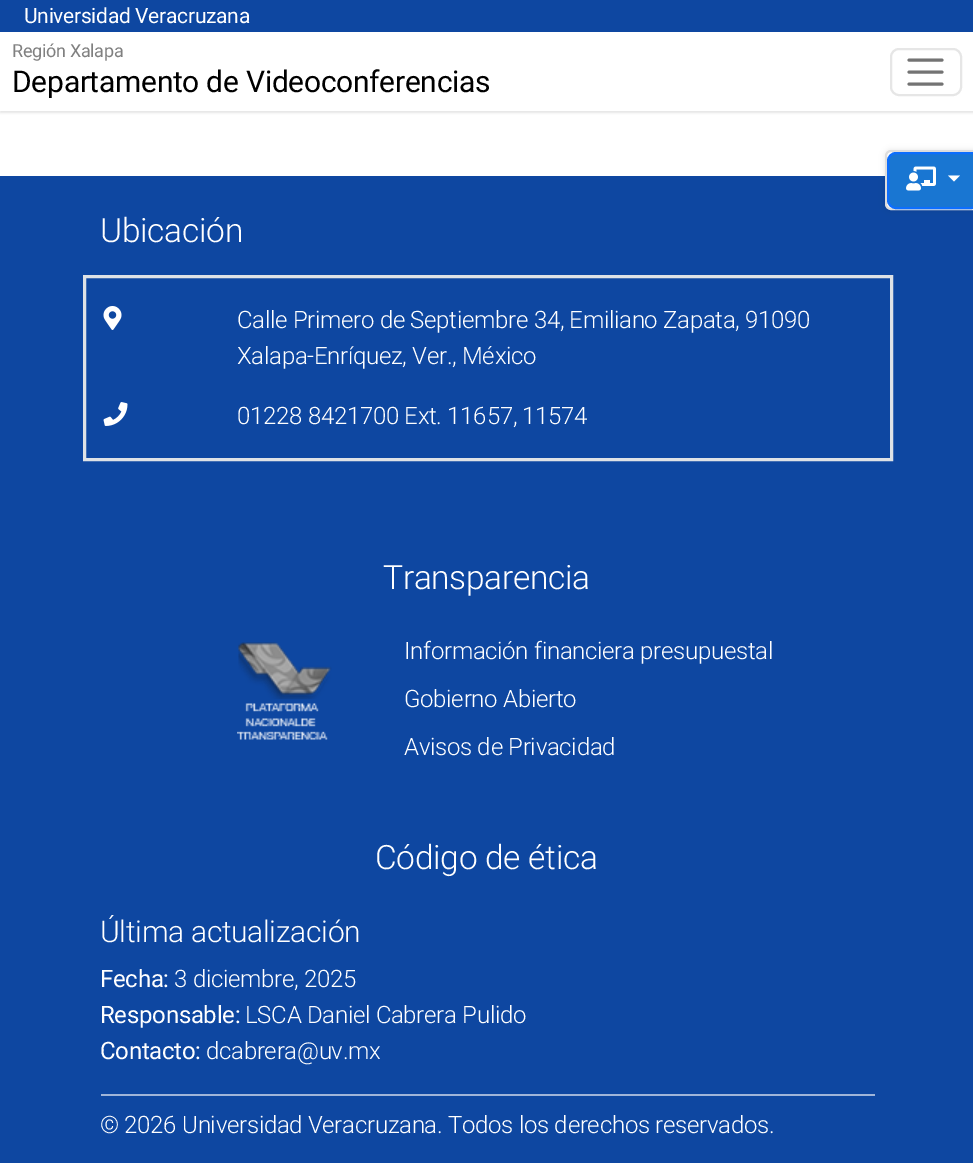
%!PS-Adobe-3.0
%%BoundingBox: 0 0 973 1163
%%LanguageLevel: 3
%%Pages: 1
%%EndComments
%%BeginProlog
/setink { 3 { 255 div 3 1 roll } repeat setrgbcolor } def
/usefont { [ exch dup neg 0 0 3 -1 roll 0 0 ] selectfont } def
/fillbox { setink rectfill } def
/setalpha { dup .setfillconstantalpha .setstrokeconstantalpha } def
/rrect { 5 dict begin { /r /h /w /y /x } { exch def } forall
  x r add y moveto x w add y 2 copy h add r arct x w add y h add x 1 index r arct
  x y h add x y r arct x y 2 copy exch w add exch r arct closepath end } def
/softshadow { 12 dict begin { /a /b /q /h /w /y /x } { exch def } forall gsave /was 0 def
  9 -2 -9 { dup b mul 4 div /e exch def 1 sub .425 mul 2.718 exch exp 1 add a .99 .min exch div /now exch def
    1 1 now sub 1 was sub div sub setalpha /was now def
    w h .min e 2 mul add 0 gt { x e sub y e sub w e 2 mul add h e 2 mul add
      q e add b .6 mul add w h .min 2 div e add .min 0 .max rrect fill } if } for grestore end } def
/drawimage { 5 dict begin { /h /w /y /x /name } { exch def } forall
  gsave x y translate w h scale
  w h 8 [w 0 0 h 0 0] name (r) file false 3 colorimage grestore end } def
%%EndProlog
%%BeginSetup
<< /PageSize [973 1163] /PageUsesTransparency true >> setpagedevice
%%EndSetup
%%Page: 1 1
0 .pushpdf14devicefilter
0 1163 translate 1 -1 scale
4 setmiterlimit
0 0 973 1163 255 255 255 fillbox
0 0 0 setink
0 2 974 111 0 1 0.1 softshadow
0 32 973 79 255 255 255 fillbox
0 0 973 32 14 71 161 fillbox
/Roboto-Regular 21 usefont
255 255 255 setink
24 23 moveto -0.3 0 (Universidad Veracruzana) ashow
/Roboto-Regular 18 usefont
128 128 128 setink
12 57 moveto -0.3 0 (Región Xalapa) ashow
/Roboto-Regular 30 usefont
0 0 0 setink
12 92 moveto -0.3 0 (Departamento de Videoconferencias) ashow
230 230 230 setink
2 setlinewidth
891 49 70 46 8 rrect stroke
115 115 115 setink
3 setlinewidth
1 setlinecap
909 60 moveto 942 60 lineto 909 72 moveto 942 72 lineto 909 84 moveto 942 84 lineto stroke
0 176 973 987 14 71 161 fillbox
0 0 0 setink
885 150 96 60 6 3 0.1 softshadow
255 255 255 setink
886 151 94 58 5 rrect gsave fill grestore
221 221 221 setink
2 setlinewidth
0 setlinecap
stroke
25 118 210 setink
888 153 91 55 8 rrect gsave fill grestore
13 110 253 setink
stroke
(assets/img1.rgb) 906 166 30 25 drawimage
255 255 255 setink
948 175.5 moveto 960 175.5 lineto 954 181.5 lineto closepath fill
/Roboto-Light 33.5 usefont
100 242 moveto -0.3 0 (Ubicación) ashow
222 226 230 setink
3 setlinewidth
84.5 276.5 807 183 rectstroke
(assets/img2.rgb) 103 306 19 24 drawimage
/Roboto-Light 24 usefont
255 255 255 setink
237 328 moveto -0.3 0 (Calle Primero de Septiembre 34, Emiliano Zapata, 91090) ashow
237 364 moveto -0.3 0 (Xalapa-Enríquez, Ver., México) ashow
(assets/img3.rgb) 103 402 25 24 drawimage
237 424 moveto -0.3 0 (01228 8421700 Ext. 11657, 11574) ashow
/Roboto-Light 33.5 usefont
383 589 moveto -0.3 0 (Transparencia) ashow
(assets/img4.rgb) 237 642 95 98 drawimage
/Roboto-Light 24 usefont
404 659 moveto -0.3 0 (Información financiera presupuestal) ashow
404 707 moveto -0.3 0 (Gobierno Abierto) ashow
404 755 moveto -0.3 0 (Avisos de Privacidad) ashow
/Roboto-Light 33.5 usefont
375 869 moveto -0.3 0 (Código de ética) ashow
/Roboto-Light 30 usefont
100 942 moveto -0.3 0 (Última actualización) ashow
/Roboto-Regular 24 usefont
100 987 moveto -0.3 0 (Fecha:) ashow
/Roboto-Light 24 usefont
174 987 moveto -0.3 0 (3 diciembre, 2025) ashow
/Roboto-Regular 24 usefont
100 1023 moveto -0.3 0 (Responsable:) ashow
/Roboto-Light 24 usefont
245 1023 moveto -0.3 0 (LSCA Daniel Cabrera Pulido) ashow
/Roboto-Regular 24 usefont
100 1059 moveto -0.3 0 (Contacto:) ashow
/Roboto-Light 24 usefont
206 1059 moveto -0.3 0 (dcabrera@uv.mx) ashow
101 1094 774 2 159 181 217 fillbox
255 255 255 setink
100 1133 moveto -0.3 0 (© 2026 Universidad Veracruzana. Todos los derechos reservados.) ashow
.poppdf14devicefilter showpage
%%EOF
